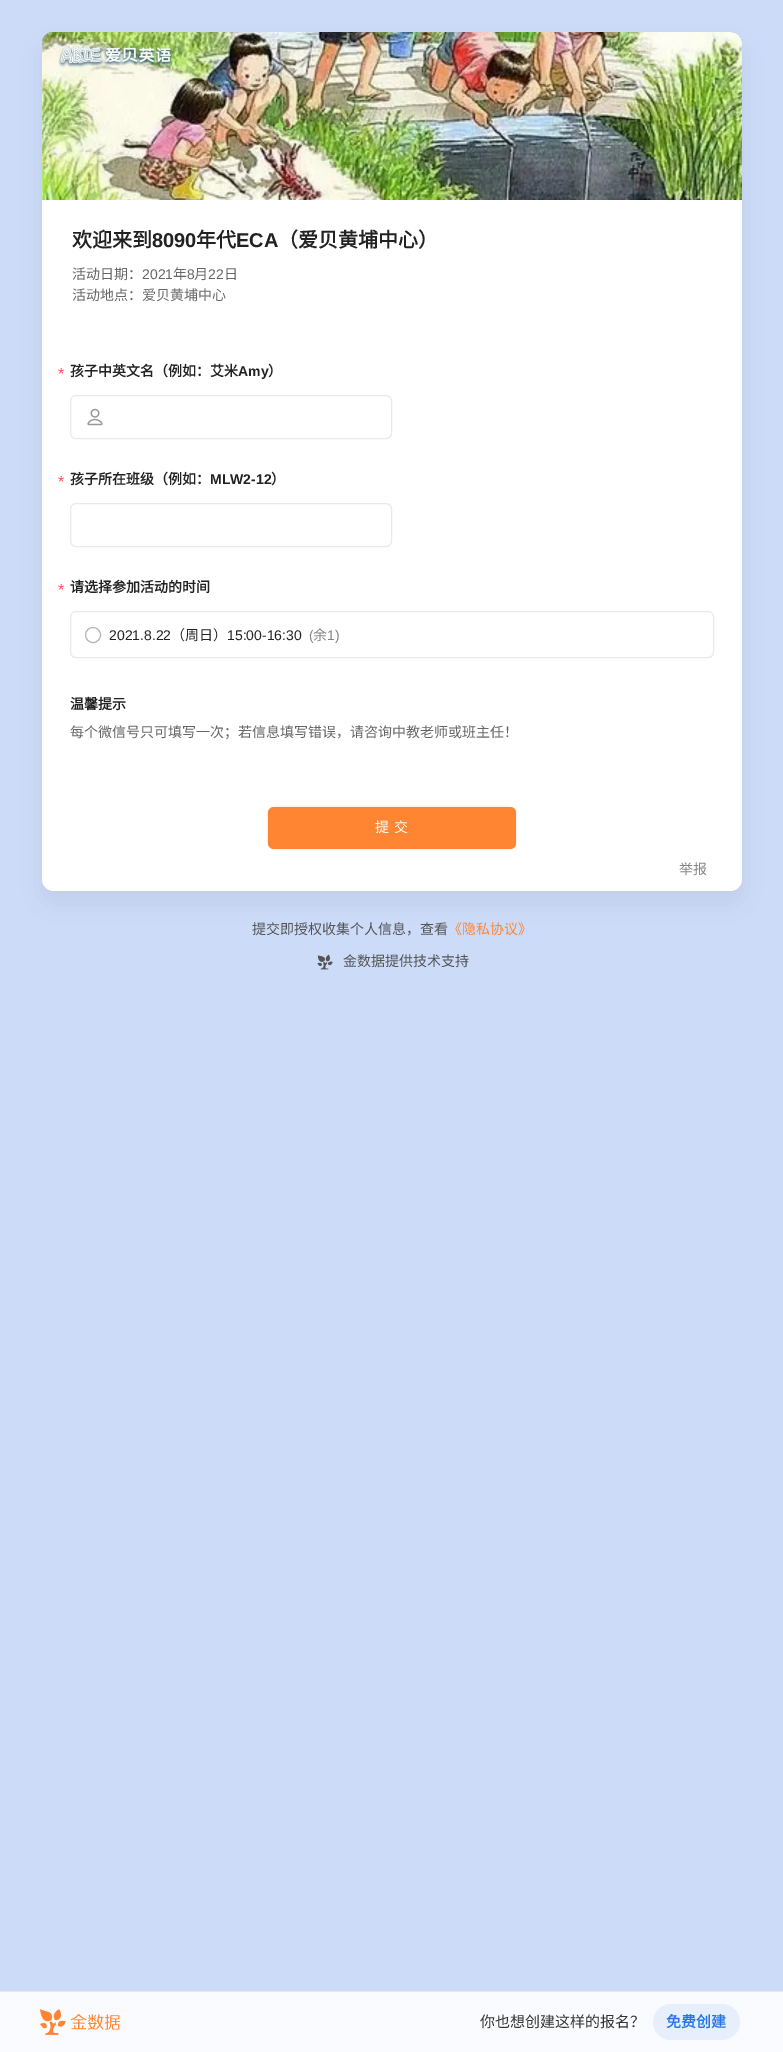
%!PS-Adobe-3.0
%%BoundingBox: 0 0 783 2052
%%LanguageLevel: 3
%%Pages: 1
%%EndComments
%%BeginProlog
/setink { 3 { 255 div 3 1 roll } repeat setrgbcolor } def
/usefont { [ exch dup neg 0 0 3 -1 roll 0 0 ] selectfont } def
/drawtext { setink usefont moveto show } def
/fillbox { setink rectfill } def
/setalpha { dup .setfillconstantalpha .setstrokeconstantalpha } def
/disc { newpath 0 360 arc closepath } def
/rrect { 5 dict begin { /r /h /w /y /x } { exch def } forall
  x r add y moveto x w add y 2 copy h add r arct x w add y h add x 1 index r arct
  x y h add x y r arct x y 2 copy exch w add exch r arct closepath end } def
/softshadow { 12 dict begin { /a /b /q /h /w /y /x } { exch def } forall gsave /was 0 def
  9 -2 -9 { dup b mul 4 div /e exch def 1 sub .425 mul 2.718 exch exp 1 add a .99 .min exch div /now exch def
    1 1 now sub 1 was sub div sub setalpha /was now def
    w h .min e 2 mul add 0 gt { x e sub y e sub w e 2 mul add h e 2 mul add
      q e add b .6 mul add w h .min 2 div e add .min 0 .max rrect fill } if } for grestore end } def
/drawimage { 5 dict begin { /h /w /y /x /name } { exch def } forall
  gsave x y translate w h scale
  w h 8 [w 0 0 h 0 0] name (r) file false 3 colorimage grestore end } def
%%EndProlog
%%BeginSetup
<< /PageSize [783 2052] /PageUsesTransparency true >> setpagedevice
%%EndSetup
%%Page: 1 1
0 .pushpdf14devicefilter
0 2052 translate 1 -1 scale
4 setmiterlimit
0 0 783 2052 204 219 248 fillbox
0 0 0 setink
42 44 700 859 12 12 0.05 softshadow
255 255 255 setink
42 32 700 859 12 rrect fill
(assets/img1.rgb) 42 32 700 168 drawimage
(欢迎来到) 72 247 /NotoSansCJKSC-Bold 20 34 34 34 drawtext
(8090) 152 247 /LiberationSans-Bold 20 34 34 34 drawtext
(年代) 196 247 /NotoSansCJKSC-Bold 20 34 34 34 drawtext
(ECA) 236 247 /LiberationSans-Bold 20 34 34 34 drawtext
(（爱贝黄埔中心）) 278 247 /NotoSansCJKSC-Bold 20 34 34 34 drawtext
(活动日期：) 72 279 /NotoSansCJKSC-Regular 14 102 102 102 drawtext
(2021) 142 279 /LiberationSans-Regular 14 102 102 102 drawtext
(年) 173 279 /NotoSansCJKSC-Regular 14 102 102 102 drawtext
(8) 187 279 /LiberationSans-Regular 14 102 102 102 drawtext
(月) 194 279 /NotoSansCJKSC-Regular 14 102 102 102 drawtext
(22) 208 279 /LiberationSans-Regular 14 102 102 102 drawtext
(日) 224 279 /NotoSansCJKSC-Regular 14 102 102 102 drawtext
(活动地点：爱贝黄埔中心) 72 300 /NotoSansCJKSC-Regular 14 102 102 102 drawtext
(*) 58 379 /LiberationSans-Regular 16 255 69 69 drawtext
(孩子中英文名（例如：艾米) 70 376 /NotoSansCJKSC-Bold 14 34 34 34 drawtext
(Amy) 238 376 /LiberationSans-Bold 14 34 34 34 drawtext
(）) 268 376 /NotoSansCJKSC-Bold 14 34 34 34 drawtext
234 234 234 setink
70.5 395.5 321 43 5.5 rrect stroke
(assets/img2.rgb) 87 408 16 18 drawimage
(*) 58 487 /LiberationSans-Regular 16 255 69 69 drawtext
(孩子所在班级（例如：) 70 484 /NotoSansCJKSC-Bold 14 34 34 34 drawtext
(MLW2-12) 210 484 /LiberationSans-Bold 14 34 34 34 drawtext
(）) 271 484 /NotoSansCJKSC-Bold 14 34 34 34 drawtext
234 234 234 setink
70.5 503.5 321 43 5.5 rrect stroke
(*) 58 595 /LiberationSans-Regular 16 255 69 69 drawtext
(请选择参加活动的时间) 70 592 /NotoSansCJKSC-Bold 14 34 34 34 drawtext
234 234 234 setink
70.5 611.5 643 46 5.5 rrect stroke
179 179 179 setink
93 635 7.5 disc stroke
(2021.8.22) 109 640 /LiberationSans-Regular 14 34 34 34 drawtext
(（周日）) 171 640 /NotoSansCJKSC-Regular 14 34 34 34 drawtext
(15:00-16:30) 227 640 /LiberationSans-Regular 14 34 34 34 drawtext
(\() 309 640 /LiberationSans-Regular 14 132 132 132 drawtext
(余) 313 640 /NotoSansCJKSC-Regular 14 132 132 132 drawtext
(1\)) 327 640 /LiberationSans-Regular 14 132 132 132 drawtext
(温馨提示) 70 709 /NotoSansCJKSC-Bold 14 34 34 34 drawtext
(每个微信号只可填写一次；若信息填写错误，请咨询中教老师或班主任！) 70 737 /NotoSansCJKSC-Regular 14 102 102 102 drawtext
0 0 0 setink
268 807 248 42 6 0.5 0.2 softshadow
255 133 51 setink
268 807 248 42 6 rrect fill
255 255 255 setink
375 832 moveto 5 0 (提交) ashow
(举报) 679 874 /NotoSansCJKSC-Regular 14 132 132 132 drawtext
(提交即授权收集个人信息，查看) 252 934 /NotoSansCJKSC-Regular 14 84 84 84 drawtext
(《隐私协议》) 448 934 /NotoSansCJKSC-Regular 14 255 133 51 drawtext
(assets/img3.rgb) 317 954 16 16 drawimage
(金数据提供技术支持) 343 966 /NotoSansCJKSC-Regular 14 84 84 84 drawtext
0 1992 783 60 250 251 254 fillbox
0 1991 783 1 230 231 234 fillbox
(assets/img4.rgb) 40 2009 80 26 drawimage
(你也想创建这样的报名？) 480 2027 /NotoSansCJKSC-Regular 15 51 51 51 drawtext
231 239 252 setink
653 2004 87 36 18 rrect fill
(免费创建) 666 2027 /NotoSansCJKSC-Bold 15 40 117 232 drawtext
.poppdf14devicefilter showpage
%%EOF
